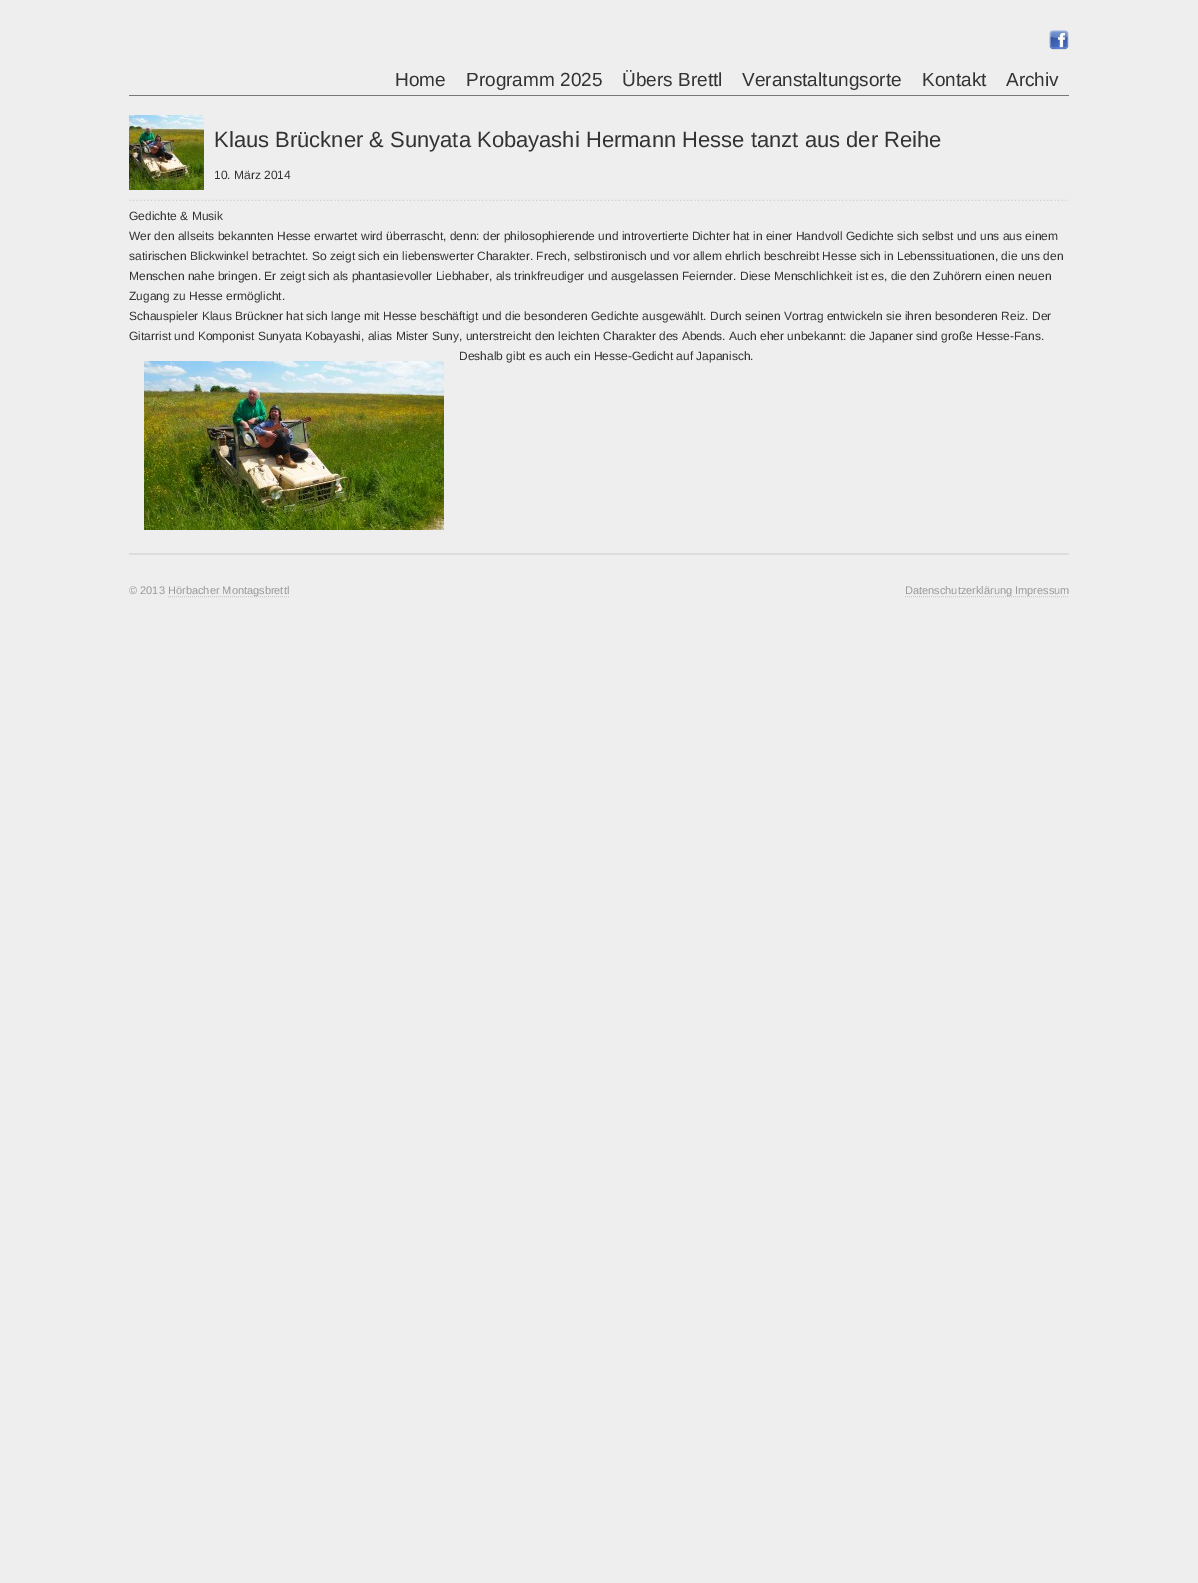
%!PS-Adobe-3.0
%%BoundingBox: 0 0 1198 1583
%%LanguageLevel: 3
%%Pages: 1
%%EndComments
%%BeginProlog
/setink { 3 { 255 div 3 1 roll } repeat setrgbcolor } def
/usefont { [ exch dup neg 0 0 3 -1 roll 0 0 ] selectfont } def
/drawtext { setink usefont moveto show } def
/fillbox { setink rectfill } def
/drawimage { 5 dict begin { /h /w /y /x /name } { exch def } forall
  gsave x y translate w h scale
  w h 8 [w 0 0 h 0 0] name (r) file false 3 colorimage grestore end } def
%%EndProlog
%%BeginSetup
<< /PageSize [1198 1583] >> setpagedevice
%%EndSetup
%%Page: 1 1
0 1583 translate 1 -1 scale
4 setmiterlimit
0 0 1198 1583 238 238 238 fillbox
(assets/img1.rgb) 1049 30 20 20 drawimage
129 95 940 1 119 119 119 fillbox
(Home) 395 86 /LiberationSans-Regular 19 51 51 51 drawtext
(Programm 2025) 466 86 /LiberationSans-Regular 19 51 51 51 drawtext
(Übers Brettl) 622 86 /LiberationSans-Regular 19 51 51 51 drawtext
(Veranstaltungsorte) 742 86 /LiberationSans-Regular 19 51 51 51 drawtext
(Kontakt) 922 86 /LiberationSans-Regular 19 51 51 51 drawtext
(Archiv) 1006 86 /LiberationSans-Regular 19 51 51 51 drawtext
129 553 940 2 221 221 221 fillbox
(assets/img2.rgb) 129 199 940 2 drawimage
(assets/img3.rgb) 129 115 75 75 drawimage
(Klaus Brückner & Sunyata Kobayashi Hermann Hesse tanzt aus der Reihe) 214 147 /LiberationSans-Regular 22 51 51 51 drawtext
(10. März 2014) 214 179 /LiberationSans-Regular 12 51 51 51 drawtext
(Gedichte & Musik) 129 220 /LiberationSans-Regular 12 51 51 51 drawtext
(Wer den allseits bekannten Hesse erwartet wird überrascht, denn: der philosophierende und introvertierte Dichter hat in einer Handvoll Gedichte sich selbst und uns aus einem) 129 240 /LiberationSans-Regular 12 51 51 51 drawtext
(satirischen Blickwinkel betrachtet. So zeigt sich ein liebenswerter Charakter. Frech, selbstironisch und vor allem ehrlich beschreibt Hesse sich in Lebenssituationen, die uns den) 129 260 /LiberationSans-Regular 12 51 51 51 drawtext
(Menschen nahe bringen. Er zeigt sich als phantasievoller Liebhaber, als trinkfreudiger und ausgelassen Feiernder. Diese Menschlichkeit ist es, die den Zuhörern einen neuen) 129 280 /LiberationSans-Regular 12 51 51 51 drawtext
(Zugang zu Hesse ermöglicht.) 129 300 /LiberationSans-Regular 12 51 51 51 drawtext
(Schauspieler Klaus Brückner hat sich lange mit Hesse beschäftigt und die besonderen Gedichte ausgewählt. Durch seinen Vortrag entwickeln sie ihren besonderen Reiz. Der) 129 320 /LiberationSans-Regular 12 51 51 51 drawtext
(Gitarrist und Komponist Sunyata Kobayashi, alias Mister Suny, unterstreicht den leichten Charakter des Abends. Auch eher unbekannt: die Japaner sind große Hesse-Fans.) 129 340 /LiberationSans-Regular 12 51 51 51 drawtext
(Deshalb gibt es auch ein Hesse-Gedicht auf Japanisch.) 459 360 /LiberationSans-Regular 12 51 51 51 drawtext
(assets/img4.rgb) 144 361 300 169 drawimage
(© 2013) 129 594 /LiberationSans-Regular 11 153 153 153 drawtext
204 204 204 setink
[1 1] 0 setdash
168 596.5 moveto 289 596.5 lineto stroke
(Hörbacher Montagsbrettl) 168 594 /LiberationSans-Regular 11 153 153 153 drawtext
204 204 204 setink
905 596.5 moveto 1015 596.5 lineto stroke
(Datenschutzerklärung) 905 594 /LiberationSans-Regular 11 153 153 153 drawtext
204 204 204 setink
1015 596.5 moveto 1069 596.5 lineto stroke
(Impressum) 1015 594 /LiberationSans-Regular 11 153 153 153 drawtext
showpage
%%EOF
